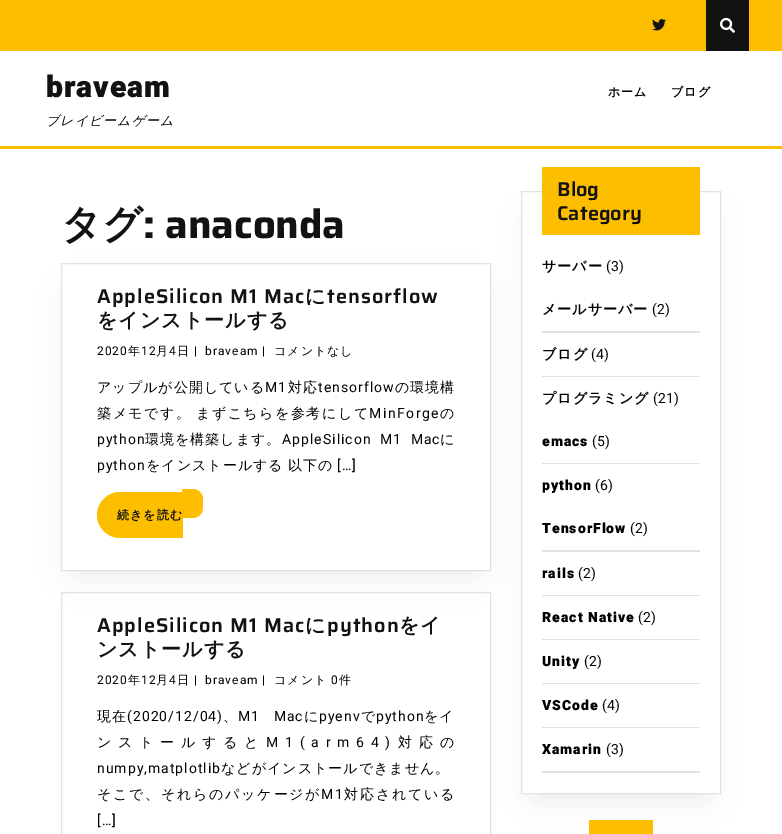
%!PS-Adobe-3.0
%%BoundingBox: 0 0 782 834
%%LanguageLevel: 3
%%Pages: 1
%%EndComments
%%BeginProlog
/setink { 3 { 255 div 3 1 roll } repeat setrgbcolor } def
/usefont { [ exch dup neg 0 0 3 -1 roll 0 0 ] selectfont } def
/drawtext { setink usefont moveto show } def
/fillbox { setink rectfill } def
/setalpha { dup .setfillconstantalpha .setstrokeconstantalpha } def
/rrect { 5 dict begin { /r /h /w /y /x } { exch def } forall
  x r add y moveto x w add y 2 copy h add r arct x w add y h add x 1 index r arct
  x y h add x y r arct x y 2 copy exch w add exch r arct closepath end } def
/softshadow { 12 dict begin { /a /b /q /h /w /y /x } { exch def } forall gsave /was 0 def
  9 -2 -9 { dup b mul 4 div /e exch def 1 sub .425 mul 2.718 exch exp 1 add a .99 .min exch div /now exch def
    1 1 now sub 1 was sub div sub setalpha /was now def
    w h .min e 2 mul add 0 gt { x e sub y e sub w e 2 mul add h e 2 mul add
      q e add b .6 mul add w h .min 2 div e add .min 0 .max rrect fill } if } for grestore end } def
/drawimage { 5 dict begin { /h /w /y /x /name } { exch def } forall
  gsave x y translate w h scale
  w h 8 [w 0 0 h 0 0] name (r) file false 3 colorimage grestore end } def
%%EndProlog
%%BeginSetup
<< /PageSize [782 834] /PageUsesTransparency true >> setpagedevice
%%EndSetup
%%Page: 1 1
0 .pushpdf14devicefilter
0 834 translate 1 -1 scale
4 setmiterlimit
0 0 782 834 255 255 255 fillbox
0 0 782 51 254 190 0 fillbox
(assets/img1.rgb) 652 19 14 12 drawimage
706 0 43 51 18 18 18 fillbox
(assets/img2.rgb) 720 17 15 16 drawimage
0 146 782 3 254 190 0 fillbox
/Heebo-Black 30 usefont
18 18 18 setink
46 97 moveto 1 0 (braveam) ashow
/WenQuanYiZenHei-MediumItalic 13 usefont
0 0 0 setink
46 125 moveto 1 0 (ブレイビームゲーム) ashow
/WenQuanYiZenHei-Bold 12 usefont
608 96 moveto 1 0 (ホーム) ashow
671 96 moveto 1 0 (ブログ) ashow
gsave
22 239 moveto 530 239 lineto 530 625 lineto 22 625 lineto closepath 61 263 moveto 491 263 lineto 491 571 lineto 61 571 lineto closepath eoclip newpath
225 225 225 setink
76 293 400 278 0 17.5 1 softshadow
grestore
(タグ) 61 238 /WenQuanYiZenHei-Bold 40 18 18 18 drawtext
(: anaconda) 143 238 /Saira-Bold 40 18 18 18 drawtext
225 225 225 setink
61.5 263.5 429 307 rectstroke
/Saira-SemiBold 20 usefont
18 18 18 setink
97 303 moveto 1 0 (AppleSilicon M1 Mac) ashow
/WenQuanYiZenHei-Bold 20 usefont
305 303 moveto 1 0 (に) ashow
/Saira-SemiBold 20 usefont
327 303 moveto 1 0 (tensorflow) ashow
/WenQuanYiZenHei-Bold 20 usefont
97 327 moveto 1 0 (をインストールする) ashow
/Heebo-Regular 12 usefont
0 0 0 setink
97 355 moveto 1 0 (2020) ashow
/WenQuanYiZenHei-Medium 12 usefont
128 355 moveto 1 0 (年) ashow
/Heebo-Regular 12 usefont
141 355 moveto 1 0 (12) ashow
/WenQuanYiZenHei-Medium 12 usefont
156 355 moveto 1 0 (月) ashow
/Heebo-Regular 12 usefont
169 355 moveto 1 0 (4) ashow
/WenQuanYiZenHei-Medium 12 usefont
177 355 moveto 1 0 (日) ashow
/Heebo-Regular 12 usefont
194 355 moveto 1 0 (|) ashow
205 355 moveto 1 0 (braveam) ashow
262 355 moveto 1 0 (|) ashow
/WenQuanYiZenHei-Medium 12 usefont
274 355 moveto 1 0 (コメントなし) ashow
/WenQuanYiZenHei-Medium 14 usefont
97 392 moveto 1 0 (アップルが公開している) ashow
/Heebo-Regular 14 usefont
265 392 moveto 1 0 (M1) ashow
/WenQuanYiZenHei-Medium 14 usefont
288 392 moveto 1 0 (対応) ashow
/Heebo-Regular 14 usefont
318 392 moveto 1 0 (tensorflow) ashow
/WenQuanYiZenHei-Medium 14 usefont
395 392 moveto 1 0 (の環境構) ashow
97 418 moveto -1 0 32 1.5 0 (築メモです。 まずこちらを参考にして) awidthshow
/Heebo-Regular 14 usefont
369 418 moveto 1.5 0 (MinForge) ashow
/WenQuanYiZenHei-Medium 14 usefont
440 418 moveto 1.5 0 (の) ashow
/Heebo-Regular 14 usefont
97 444 moveto 1 0 (python) ashow
/WenQuanYiZenHei-Medium 14 usefont
145 444 moveto 1 0 (環境を構築します。) ashow
/Heebo-Regular 14 usefont
282 444 moveto 4 0 32 1 0 (AppleSilicon M1 Mac) awidthshow
/WenQuanYiZenHei-Medium 14 usefont
440 444 moveto 1 0 (に) ashow
/Heebo-Regular 14 usefont
97 470 moveto 1 0 (python) ashow
/WenQuanYiZenHei-Medium 14 usefont
146 470 moveto -1 0 32 1 0 (をインストールする 以下の) awidthshow
/Heebo-Regular 14 usefont
337 470 moveto 1 0 ([…]) ashow
254 190 0 setink
120 492 moveto 183 492 lineto 183 538 lineto 120 538 lineto 107.5 538 97 527.5 97 515 curveto 97 502.5 107.5 492 120 492 curveto closepath fill
/WenQuanYiZenHei-Bold 12 usefont
18 18 18 setink
117 519 moveto 1 0 (続きを読む) ashow
254 190 0 setink
182 489 moveto 192.5 489 lineto 198.5 489 203 493.5 203 499.5 curveto 203 507.5 lineto 203 513.5 198.5 518 192.5 518 curveto 182 518 lineto closepath fill
225 225 225 setink
61.5 592.5 429 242 rectstroke
/Saira-SemiBold 20 usefont
18 18 18 setink
97 632 moveto 1 0 (AppleSilicon M1 Mac) ashow
/WenQuanYiZenHei-Bold 20 usefont
305 632 moveto 1 0 (に) ashow
/Saira-SemiBold 20 usefont
327 632 moveto 1 0 (python) ashow
/WenQuanYiZenHei-Bold 20 usefont
399 632 moveto 1 0 (をイ) ashow
97 656 moveto 1 0 (ンストールする) ashow
/Heebo-Regular 12 usefont
0 0 0 setink
97 684 moveto 1 0 (2020) ashow
/WenQuanYiZenHei-Medium 12 usefont
128 684 moveto 1 0 (年) ashow
/Heebo-Regular 12 usefont
141 684 moveto 1 0 (12) ashow
/WenQuanYiZenHei-Medium 12 usefont
156 684 moveto 1 0 (月) ashow
/Heebo-Regular 12 usefont
169 684 moveto 1 0 (4) ashow
/WenQuanYiZenHei-Medium 12 usefont
177 684 moveto 1 0 (日) ashow
/Heebo-Regular 12 usefont
194 684 moveto 1 0 (|) ashow
205 684 moveto 1 0 (braveam) ashow
262 684 moveto 1 0 (|) ashow
/WenQuanYiZenHei-Medium 12 usefont
274 684 moveto 1 0 (コメント) ashow
/Heebo-Regular 12 usefont
331 684 moveto 1 0 (0) ashow
/WenQuanYiZenHei-Medium 12 usefont
339 684 moveto 1 0 (件) ashow
/WenQuanYiZenHei-Medium 14 usefont
97 721 moveto 1 0 (現在) ashow
/Heebo-Regular 14 usefont
127 721 moveto 1 0 (\(2020/12/04\)) ashow
/WenQuanYiZenHei-Medium 14 usefont
223 721 moveto 1 0 (、) ashow
/Heebo-Regular 14 usefont
238 721 moveto 9 0 32 1 0 (M1 Mac) awidthshow
/WenQuanYiZenHei-Medium 14 usefont
304 721 moveto 1 0 (に) ashow
/Heebo-Regular 14 usefont
319 721 moveto 1 0 (pyenv) ashow
/WenQuanYiZenHei-Medium 14 usefont
361 721 moveto 1 0 (で) ashow
/Heebo-Regular 14 usefont
376 721 moveto 1 0 (python) ashow
/WenQuanYiZenHei-Medium 14 usefont
424 721 moveto 1 0 (をイ) ashow
97 747 moveto 6.75 0 (ンストールすると) ashow
/Heebo-Regular 14 usefont
266 747 moveto 6.75 0 (M1\(arm64\)) ashow
/WenQuanYiZenHei-Medium 14 usefont
398 747 moveto 6.75 0 (対応の) ashow
/Heebo-Regular 14 usefont
97 773 moveto 1 0 (numpy,matplotlib) ashow
/WenQuanYiZenHei-Medium 14 usefont
221 773 moveto 1 0 (などがインストールできません。) ashow
97 799 moveto 1.75 0 (そこで、それらのパッケージが) ashow
/Heebo-Regular 14 usefont
321 799 moveto 1.75 0 (M1) ashow
/WenQuanYiZenHei-Medium 14 usefont
344 799 moveto 1.75 0 (対応されている) ashow
/Heebo-Regular 14 usefont
97 825 moveto 1 0 ([…]) ashow
gsave
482 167 moveto 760 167 lineto 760 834 lineto 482 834 lineto closepath 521 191 moveto 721 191 lineto 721 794 lineto 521 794 lineto closepath eoclip newpath
225 225 225 setink
536 221 170 573 0 17.5 1 softshadow
grestore
225 225 225 setink
521.5 191.5 199 602 rectstroke
542 167 158 68 254 190 0 fillbox
(Blog) 557 196 /Saira-SemiBold 20 18 18 18 drawtext
(Category) 557 220 /Saira-SemiBold 20 18 18 18 drawtext
542 331 158 2 225 225 225 fillbox
/WenQuanYiZenHei-Bold 14 usefont
0 0 0 setink
542 271 moveto 1 0 (サーバー) ashow
(\(3\)) 606 271 /Heebo-Regular 14 0 0 0 drawtext
/WenQuanYiZenHei-Bold 14 usefont
542 314 moveto 1 0 (メールサーバー) ashow
(\(2\)) 652 314 /Heebo-Regular 14 0 0 0 drawtext
542 376 158 1 225 225 225 fillbox
/WenQuanYiZenHei-Bold 14 usefont
0 0 0 setink
542 359 moveto 1 0 (ブログ) ashow
(\(4\)) 591 359 /Heebo-Regular 14 0 0 0 drawtext
542 771 158 2 225 225 225 fillbox
/WenQuanYiZenHei-Bold 14 usefont
0 0 0 setink
542 403 moveto 1 0 (プログラミング) ashow
(\(21\)) 653 403 /Heebo-Regular 14 0 0 0 drawtext
542 463 158 1 225 225 225 fillbox
/Heebo-Black 14 usefont
0 0 0 setink
542 446 moveto 1 0 (emacs) ashow
(\(5\)) 592 446 /Heebo-Regular 14 0 0 0 drawtext
542 550 158 2 225 225 225 fillbox
/Heebo-Black 14 usefont
0 0 0 setink
542 490 moveto 1 0 (python) ashow
(\(6\)) 595 490 /Heebo-Regular 14 0 0 0 drawtext
/Heebo-Black 14 usefont
542 533 moveto 1 0 (TensorFlow) ashow
(\(2\)) 630 533 /Heebo-Regular 14 0 0 0 drawtext
542 595 158 1 225 225 225 fillbox
/Heebo-Black 14 usefont
0 0 0 setink
542 578 moveto 1 0 (rails) ashow
(\(2\)) 578 578 /Heebo-Regular 14 0 0 0 drawtext
542 639 158 1 225 225 225 fillbox
/Heebo-Black 14 usefont
0 0 0 setink
542 622 moveto 1 0 (React Native) ashow
(\(2\)) 638 622 /Heebo-Regular 14 0 0 0 drawtext
542 683 158 1 225 225 225 fillbox
/Heebo-Black 14 usefont
0 0 0 setink
542 666 moveto 1 0 (Unity) ashow
(\(2\)) 584 666 /Heebo-Regular 14 0 0 0 drawtext
542 727 158 1 225 225 225 fillbox
/Heebo-Black 14 usefont
0 0 0 setink
542 710 moveto 1 0 (VSCode) ashow
(\(4\)) 602 710 /Heebo-Regular 14 0 0 0 drawtext
/Heebo-Black 14 usefont
542 754 moveto 1 0 (Xamarin) ashow
(\(3\)) 606 754 /Heebo-Regular 14 0 0 0 drawtext
589 820 64 14 254 190 0 fillbox
.poppdf14devicefilter showpage
%%EOF
